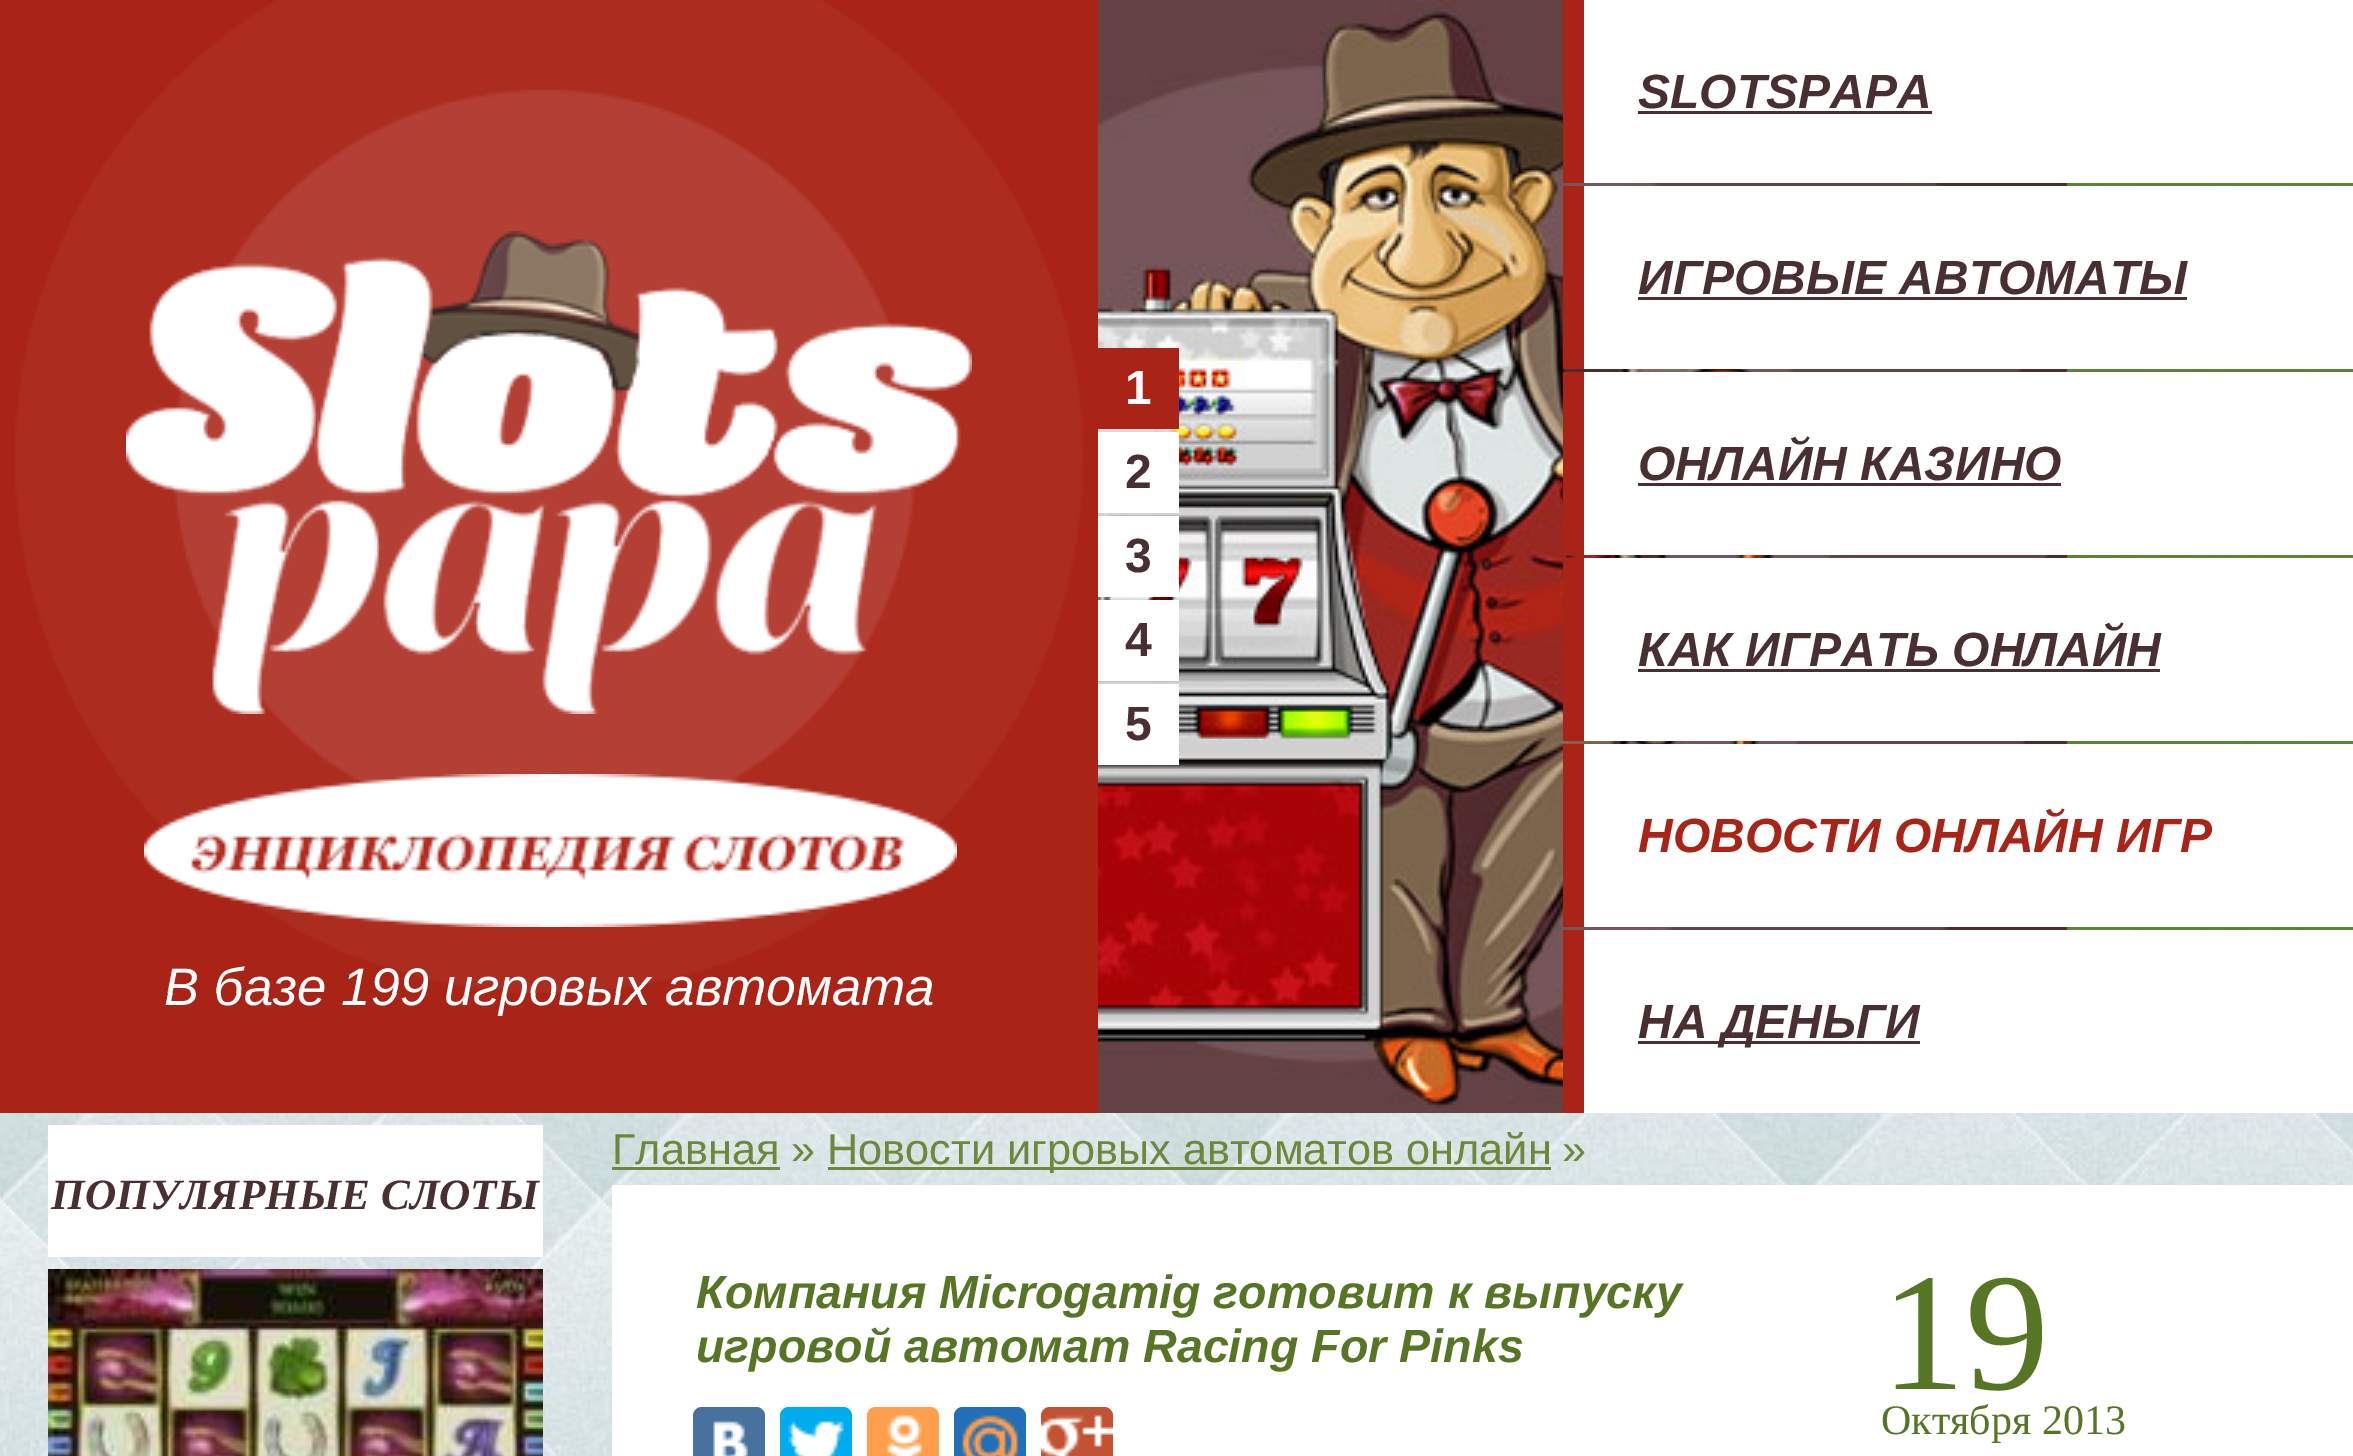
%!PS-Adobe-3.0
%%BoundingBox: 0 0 2353 1456
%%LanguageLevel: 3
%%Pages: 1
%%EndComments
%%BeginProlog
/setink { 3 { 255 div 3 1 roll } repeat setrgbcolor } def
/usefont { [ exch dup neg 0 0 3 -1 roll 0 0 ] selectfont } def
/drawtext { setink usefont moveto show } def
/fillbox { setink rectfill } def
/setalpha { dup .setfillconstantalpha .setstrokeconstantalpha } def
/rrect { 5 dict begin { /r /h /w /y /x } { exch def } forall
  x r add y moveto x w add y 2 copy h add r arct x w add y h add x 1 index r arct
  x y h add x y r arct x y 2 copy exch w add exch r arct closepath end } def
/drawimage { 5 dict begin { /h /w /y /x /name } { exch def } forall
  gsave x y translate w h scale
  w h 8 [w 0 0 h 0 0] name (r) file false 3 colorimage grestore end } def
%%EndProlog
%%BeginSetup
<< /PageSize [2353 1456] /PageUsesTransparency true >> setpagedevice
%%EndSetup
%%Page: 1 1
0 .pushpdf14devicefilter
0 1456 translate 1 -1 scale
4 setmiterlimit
0 0 2353 1456 255 255 255 fillbox
(assets/img1.rgb) 0 183 2353 1273 drawimage
0.77 setalpha
2067 183 286 747 49 105 0 fillbox
1 setalpha
(assets/img2.rgb) 1098 0 969 1113 drawimage
1098 348 81 81 169 35 23 fillbox
(1) 1125 404 /LiberationSans-Bold 48 255 255 255 drawtext
1098 432 81 81 255 255 255 fillbox
(2) 1125 488 /LiberationSans-Bold 48 73 47 49 drawtext
1098 516 81 81 255 255 255 fillbox
(3) 1125 572 /LiberationSans-Bold 48 73 47 49 drawtext
1098 600 81 81 255 255 255 fillbox
(4) 1125 656 /LiberationSans-Bold 48 73 47 49 drawtext
1098 684 81 81 255 255 255 fillbox
(5) 1125 740 /LiberationSans-Bold 48 73 47 49 drawtext
0 0 1098 1113 169 35 23 fillbox
(assets/img4.rgb) 126 231 846 483 drawimage
(assets/img5.rgb) 144 774 813 153 drawimage
(В базе 199 игровых автомата) 164 1005 /LiberationSans-Italic 52.75 255 255 255 drawtext
(assets/img3.rgb) 15 0 1068 993 drawimage
1584 0 483 183 255 255 255 fillbox
1563 0 21 183 169 35 23 fillbox
(SLOTSPAPA) 1638 108 /LiberationSans-BoldItalic 48 73 47 49 drawtext
1638 111 294 3 73 47 49 fillbox
1584 186 769 183 255 255 255 fillbox
1563 186 21 183 169 35 23 fillbox
(ИГРОВЫЕ АВТОМАТЫ) 1638 294 /LiberationSans-BoldItalic 48 73 47 49 drawtext
1638 297 549 3 73 47 49 fillbox
1584 372 769 183 255 255 255 fillbox
1563 372 21 183 169 35 23 fillbox
(ОНЛАЙН КАЗИНО) 1638 480 /LiberationSans-BoldItalic 48 73 47 49 drawtext
1638 483 423 3 73 47 49 fillbox
1584 558 769 183 255 255 255 fillbox
1563 558 21 183 169 35 23 fillbox
(КАК ИГРАТЬ ОНЛАЙН) 1638 666 /LiberationSans-BoldItalic 48 73 47 49 drawtext
1638 669 522 3 73 47 49 fillbox
1584 744 769 183 255 255 255 fillbox
1563 744 21 183 169 35 23 fillbox
(НОВОСТИ ОНЛАЙН ИГР) 1638 852 /LiberationSans-BoldItalic 48 169 35 23 drawtext
1584 930 769 183 255 255 255 fillbox
1563 930 21 183 169 35 23 fillbox
1638 1041 282 3 73 47 49 fillbox
(НА ДЕНЬГИ) 1638 1038 /LiberationSans-BoldItalic 48 73 47 49 drawtext
48 1125 495 132 255 255 255 fillbox
(ПОПУЛЯРНЫЕ СЛОТЫ) 51 1209 /LiberationSerif-BoldItalic 43.25 73 47 49 drawtext
(assets/img6.rgb) 48 1269 495 187 drawimage
(Главная ») 612 1164 /LiberationSans-Regular 43.25 109 136 58 drawtext
612 1167 168 3 109 136 58 fillbox
828 1167 723 3 109 136 58 fillbox
(Новости игровых автоматов онлайн) 827 1164 /LiberationSans-Regular 43.25 109 136 58 drawtext
(») 1562 1164 /LiberationSans-Regular 43.25 109 136 58 drawtext
612 1185 1741 271 255 255 255 fillbox
(Компания Microgamig готовит к выпуску) 696 1308 /LiberationSans-BoldItalic 46.6 86 118 37 drawtext
(игровой автомат Racing For Pinks) 696 1362 /LiberationSans-BoldItalic 46.6 86 118 37 drawtext
(19) 1881 1389 /LiberationSerif-Regular 168 86 118 37 drawtext
(Октября 2013) 1881 1434 /LiberationSerif-Regular 42 86 118 37 drawtext
72 114 158 setink
693 1407 72 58 9 rrect fill
(assets/img7.rgb) 713 1421 35 35 drawimage
0 172 237 setink
780 1407 72 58 9 rrect fill
(assets/img8.rgb) 788 1421 56 35 drawimage
255 159 77 setink
867 1407 72 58 9 rrect fill
(assets/img9.rgb) 887 1415 35 41 drawimage
34 110 183 setink
954 1407 72 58 9 rrect fill
(assets/img10.rgb) 962 1415 56 41 drawimage
194 82 52 setink
1041 1407 72 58 9 rrect fill
(assets/img11.rgb) 1041 1415 72 41 drawimage
.poppdf14devicefilter showpage
%%EOF
